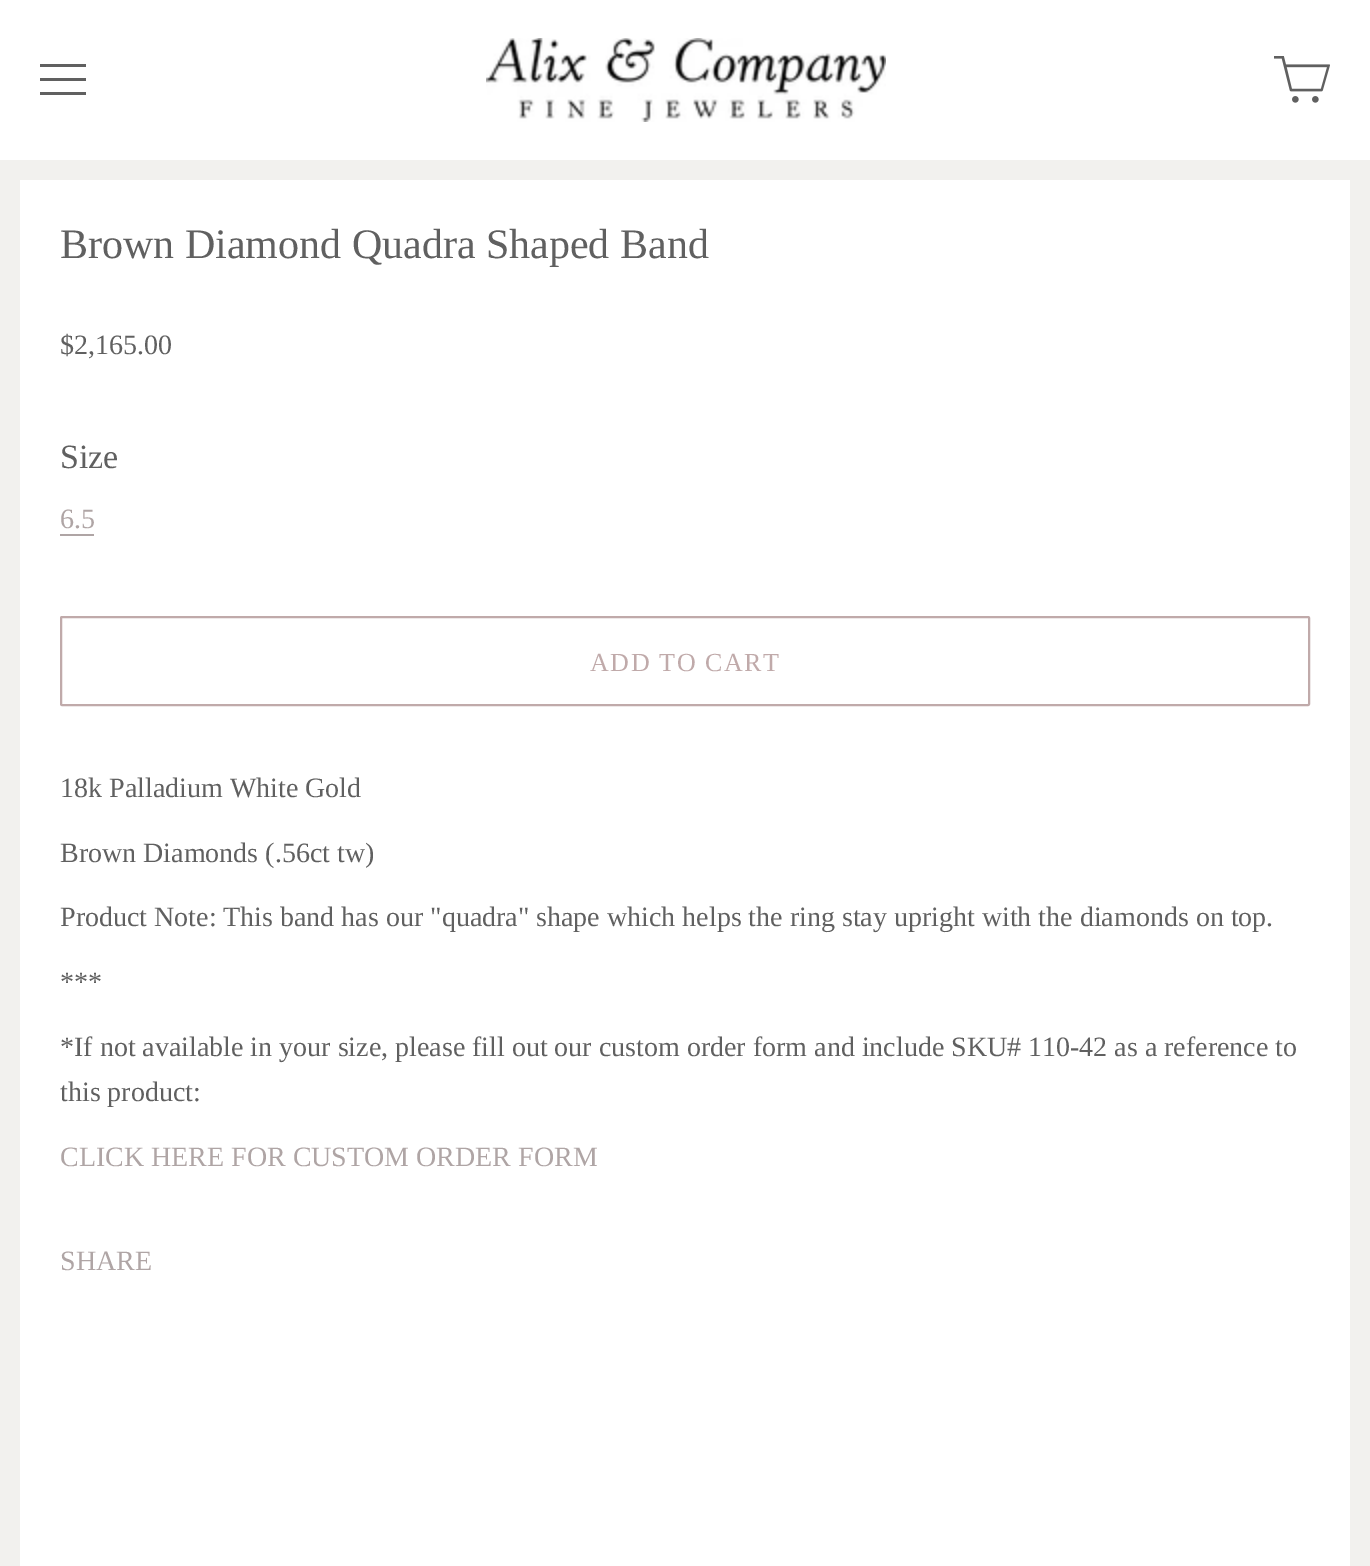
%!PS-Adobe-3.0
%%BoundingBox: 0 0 1370 1566
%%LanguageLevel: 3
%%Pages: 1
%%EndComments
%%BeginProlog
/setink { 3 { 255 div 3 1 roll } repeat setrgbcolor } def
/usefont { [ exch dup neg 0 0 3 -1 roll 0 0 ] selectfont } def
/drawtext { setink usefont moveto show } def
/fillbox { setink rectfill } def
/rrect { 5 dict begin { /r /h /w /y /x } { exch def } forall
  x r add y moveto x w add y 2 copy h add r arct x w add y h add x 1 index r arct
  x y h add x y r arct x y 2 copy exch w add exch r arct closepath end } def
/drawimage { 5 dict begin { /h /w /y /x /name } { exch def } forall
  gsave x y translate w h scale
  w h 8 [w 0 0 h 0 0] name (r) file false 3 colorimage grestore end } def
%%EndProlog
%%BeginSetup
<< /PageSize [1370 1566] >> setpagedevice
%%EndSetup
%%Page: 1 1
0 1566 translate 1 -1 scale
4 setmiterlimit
0 0 1370 1566 242 241 238 fillbox
0 0 1370 160 255 255 255 fillbox
40 64 46 3 96 96 96 fillbox
40 78 46 3 96 96 96 fillbox
40 92 46 3 96 96 96 fillbox
(assets/img1.rgb) 486 38 400 84 drawimage
(assets/img2.rgb) 1274 56 56 47 drawimage
20 180 1330 1386 255 255 255 fillbox
(Brown Diamond Quadra Shaped Band) 60 258 /LiberationSerif-Regular 42 96 96 96 drawtext
($2,165.00) 60 354 /LiberationSerif-Regular 28 96 96 96 drawtext
(Size) 60 468 /LiberationSerif-Regular 34 96 96 96 drawtext
(6.5) 60 528 /LiberationSerif-Regular 28 175 165 165 drawtext
60 534 34 2 175 165 165 fillbox
192 170 170 setink
2 setlinewidth
61 617 1248 88 1 rrect stroke
/LiberationSerif-Regular 26 usefont
590 671 moveto 1.6 0 (ADD TO CART) ashow
(18k Palladium White Gold) 60 797 /LiberationSerif-Regular 28 96 96 96 drawtext
(Brown Diamonds \(.56ct tw\)) 60 862 /LiberationSerif-Regular 28 96 96 96 drawtext
(Product Note: This band has our "quadra" shape which helps the ring stay upright with the diamonds on top.) 60 926 /LiberationSerif-Regular 28 96 96 96 drawtext
(***) 60 991 /LiberationSerif-Regular 28 96 96 96 drawtext
(*If not available in your size, please fill out our custom order form and include SKU# 110-42 as a reference to) 60 1056 /LiberationSerif-Regular 28 96 96 96 drawtext
(this product:) 60 1101 /LiberationSerif-Regular 28 96 96 96 drawtext
(CLICK HERE FOR CUSTOM ORDER FORM) 60 1166 /LiberationSerif-Regular 28 175 165 165 drawtext
(SHARE) 60 1270 /LiberationSerif-Regular 28 175 165 165 drawtext
showpage
%%EOF
